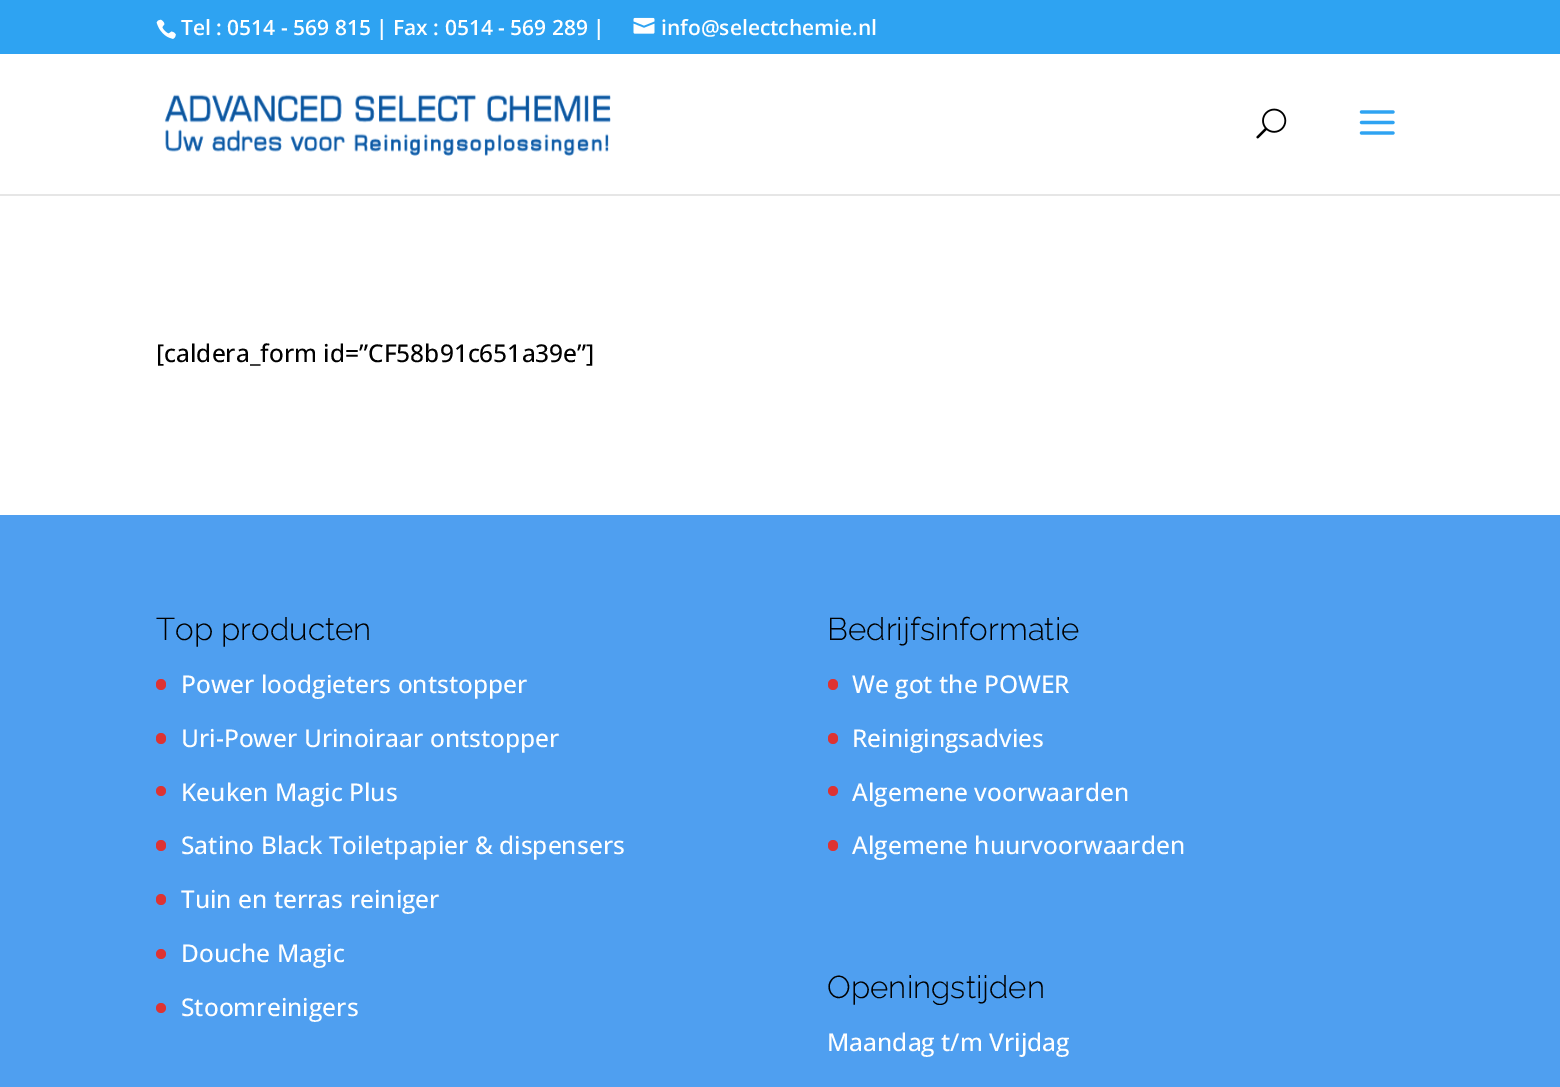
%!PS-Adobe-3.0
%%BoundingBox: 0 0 1560 1087
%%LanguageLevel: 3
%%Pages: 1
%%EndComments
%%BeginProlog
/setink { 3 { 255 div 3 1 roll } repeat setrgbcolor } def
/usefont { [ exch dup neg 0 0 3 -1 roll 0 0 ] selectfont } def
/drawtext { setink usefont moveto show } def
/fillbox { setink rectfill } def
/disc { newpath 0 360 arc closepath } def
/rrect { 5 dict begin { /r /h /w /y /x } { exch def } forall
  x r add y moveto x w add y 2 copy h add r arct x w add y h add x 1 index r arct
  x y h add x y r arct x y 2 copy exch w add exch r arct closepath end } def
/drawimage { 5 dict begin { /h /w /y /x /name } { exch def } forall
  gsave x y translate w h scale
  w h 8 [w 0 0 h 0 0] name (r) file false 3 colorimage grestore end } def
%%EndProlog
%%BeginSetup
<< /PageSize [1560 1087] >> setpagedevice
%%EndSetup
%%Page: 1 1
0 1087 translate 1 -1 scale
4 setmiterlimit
0 0 1560 1087 79 159 240 fillbox
0 0 1560 54 46 163 242 fillbox
(assets/img1.rgb) 156 19 20 20 drawimage
(Tel : 0514 - 569 815 | Fax : 0514 - 569 289 |) 181 35 /OpenSans-SemiBold 21 255 255 255 drawtext
(assets/img2.rgb) 633 17 22 17 drawimage
(info@selectchemie.nl) 661 35 /OpenSans-SemiBold 21 255 255 255 drawtext
0 194 1560 2 230 230 230 fillbox
0 54 1560 140 255 255 255 fillbox
(assets/img3.rgb) 164 94 447 62 drawimage
(assets/img4.rgb) 1256 108 31 31 drawimage
(assets/img5.rgb) 1359 110 36 25 drawimage
0 196 1560 319 255 255 255 fillbox
([caldera_form id=”CF58b91c651a39e”]) 156 362 /OpenSans-Medium 24.5 0 0 0 drawtext
(Top producten) 156 640 /Raleway-Light 31.5 0 0 0 drawtext
221 51 51 setink
156 679 10 11 5 rrect fill
(Power loodgieters ontstopper) 181 693 /OpenSans-Medium 24.5 255 255 255 drawtext
221 51 51 setink
156 733 10 11 5 rrect fill
(Uri-Power Urinoiraar ontstopper) 181 747 /OpenSans-Medium 24.5 255 255 255 drawtext
221 51 51 setink
161 791 5 disc fill
(Keuken Magic Plus) 181 801 /OpenSans-Medium 24.5 255 255 255 drawtext
221 51 51 setink
156 840 10 11 5 rrect fill
(Satino Black Toiletpapier & dispensers) 181 854 /OpenSans-Medium 24.5 255 255 255 drawtext
221 51 51 setink
156 894 10 11 5 rrect fill
(Tuin en terras reiniger) 181 908 /OpenSans-Medium 24.5 255 255 255 drawtext
221 51 51 setink
161 954 5 disc fill
(Douche Magic) 181 962 /OpenSans-Medium 24.5 255 255 255 drawtext
221 51 51 setink
161 1008 5 disc fill
(Stoomreinigers) 181 1016 /OpenSans-Medium 24.5 255 255 255 drawtext
(Bedrijfsinformatie) 827 640 /Raleway-Light 31.5 0 0 0 drawtext
221 51 51 setink
828 679 10 11 5 rrect fill
(We got the POWER) 852 693 /OpenSans-Medium 24.5 255 255 255 drawtext
221 51 51 setink
828 733 10 11 5 rrect fill
(Reinigingsadvies) 852 747 /OpenSans-Medium 24.5 255 255 255 drawtext
221 51 51 setink
833 791 5 disc fill
(Algemene voorwaarden) 852 801 /OpenSans-Medium 24.5 255 255 255 drawtext
221 51 51 setink
828 840 10 11 5 rrect fill
(Algemene huurvoorwaarden) 852 854 /OpenSans-Medium 24.5 255 255 255 drawtext
(Openingstijden) 827 998 /Raleway-Light 31.5 0 0 0 drawtext
(Maandag t/m Vrijdag) 827 1051 /OpenSans-Medium 24.5 255 255 255 drawtext
showpage
%%EOF
